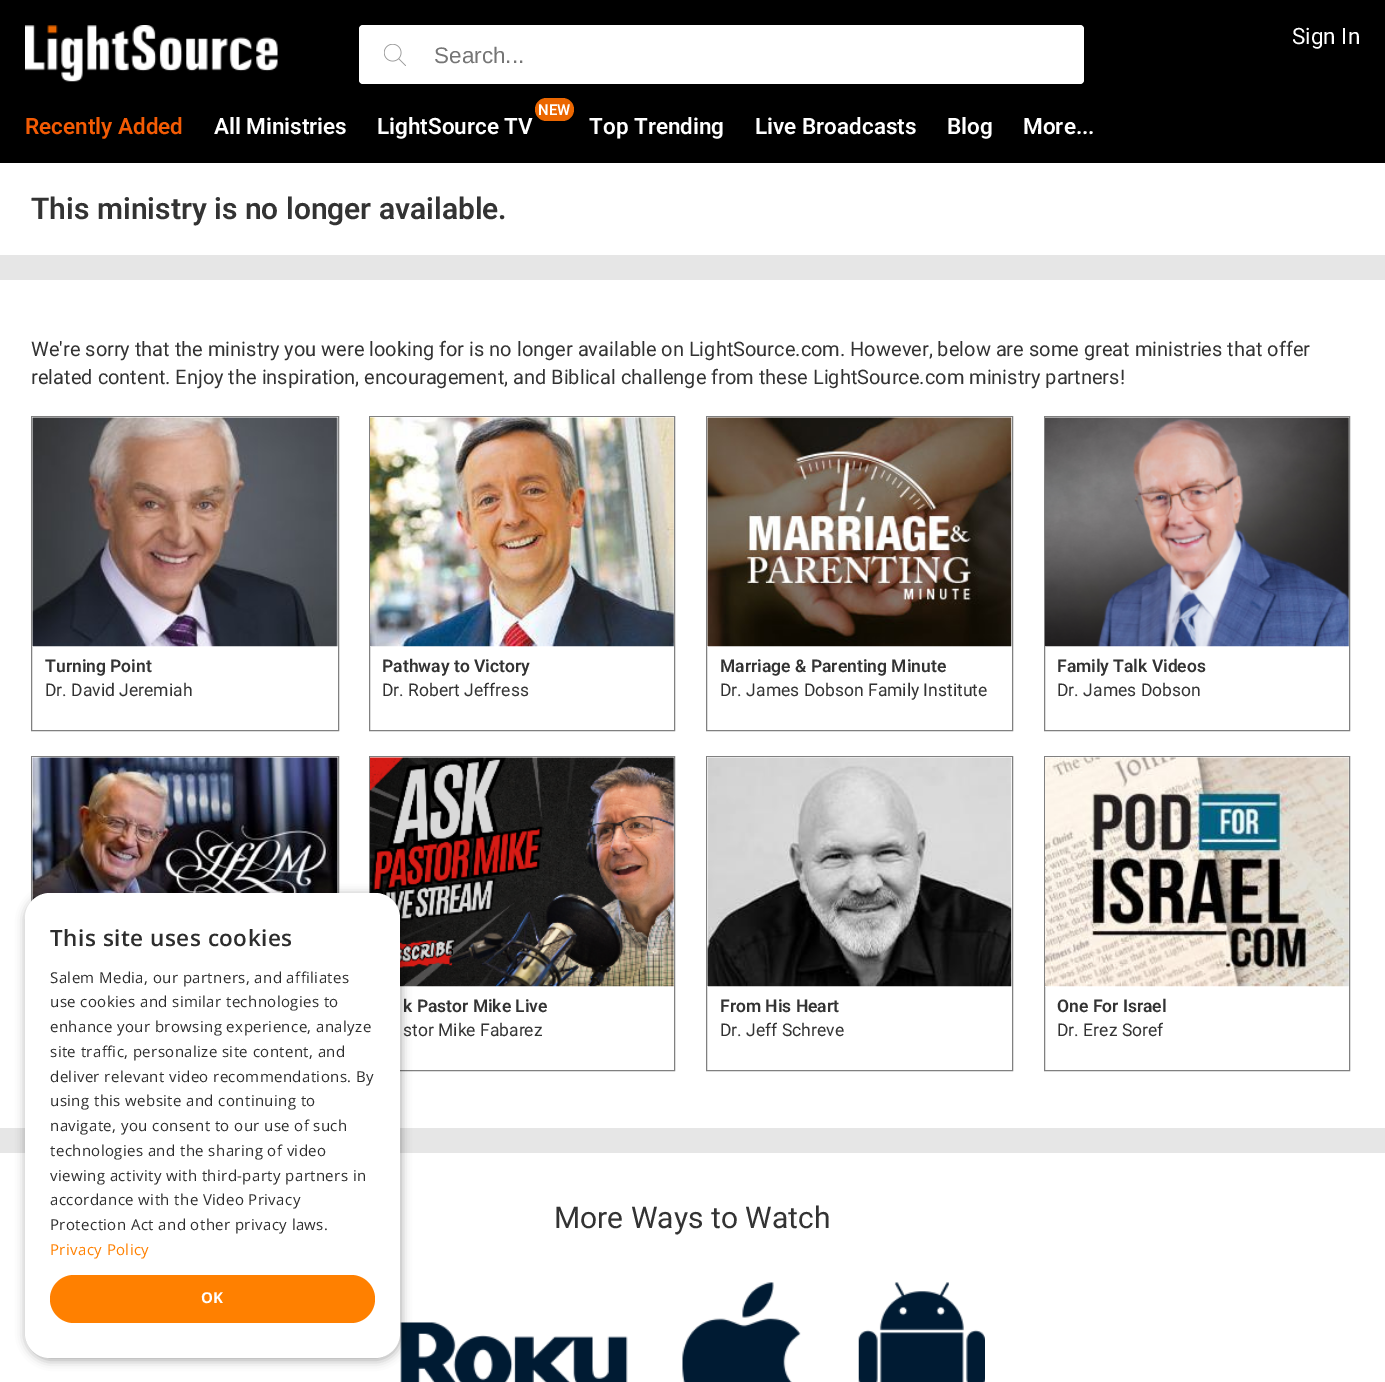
%!PS-Adobe-3.0
%%BoundingBox: 0 0 1385 1382
%%LanguageLevel: 3
%%Pages: 1
%%EndComments
%%BeginProlog
/setink { 3 { 255 div 3 1 roll } repeat setrgbcolor } def
/usefont { [ exch dup neg 0 0 3 -1 roll 0 0 ] selectfont } def
/drawtext { setink usefont moveto show } def
/fillbox { setink rectfill } def
/setalpha { dup .setfillconstantalpha .setstrokeconstantalpha } def
/rrect { 5 dict begin { /r /h /w /y /x } { exch def } forall
  x r add y moveto x w add y 2 copy h add r arct x w add y h add x 1 index r arct
  x y h add x y r arct x y 2 copy exch w add exch r arct closepath end } def
/softshadow { 12 dict begin { /a /b /q /h /w /y /x } { exch def } forall gsave /was 0 def
  9 -2 -9 { dup b mul 4 div /e exch def 1 sub .425 mul 2.718 exch exp 1 add a .99 .min exch div /now exch def
    1 1 now sub 1 was sub div sub setalpha /was now def
    w h .min e 2 mul add 0 gt { x e sub y e sub w e 2 mul add h e 2 mul add
      q e add b .6 mul add w h .min 2 div e add .min 0 .max rrect fill } if } for grestore end } def
/drawimage { 5 dict begin { /h /w /y /x /name } { exch def } forall
  gsave x y translate w h scale
  w h 8 [w 0 0 h 0 0] name (r) file false 3 colorimage grestore end } def
%%EndProlog
%%BeginSetup
<< /PageSize [1385 1382] /PageUsesTransparency true >> setpagedevice
%%EndSetup
%%Page: 1 1
0 .pushpdf14devicefilter
0 1382 translate 1 -1 scale
4 setmiterlimit
0 0 1385 1382 230 230 230 fillbox
0 0 1385 163 0 0 0 fillbox
(assets/img1.rgb) 25 25 253 57 drawimage
(Sign In) 1292 44 /Roboto-Regular 22.5 255 255 255 drawtext
359 25 725 59 4 rrect fill
(assets/img2.rgb) 384 44 22 22 drawimage
(Search...) 434 63 /LiberationSans-Regular 22.5 117 117 117 drawtext
(Recently Added) 25 134 /Roboto-SemiBold 22.5 243 91 4 drawtext
(All Ministries) 214 134 /Roboto-SemiBold 22.5 255 255 255 drawtext
235 103 1 setink
535 98 39 23 11.5 rrect fill
(NEW) 538 115 /Roboto-SemiBold 15 255 255 255 drawtext
(LightSource TV) 377 134 /Roboto-SemiBold 22.5 255 255 255 drawtext
(Top Trending) 589 134 /Roboto-SemiBold 22.5 255 255 255 drawtext
(Live Broadcasts) 755 134 /Roboto-SemiBold 22.5 255 255 255 drawtext
(Blog) 947 134 /Roboto-SemiBold 22.5 255 255 255 drawtext
(More...) 1023 134 /Roboto-SemiBold 22.5 255 255 255 drawtext
0 163 1385 92 255 255 255 fillbox
(This ministry is no longer available.) 31 219 /Roboto-SemiBold 30 51 51 51 drawtext
0 280 1385 848 255 255 255 fillbox
(We're sorry that the ministry you were looking for is no longer available on LightSource.com. However, below are some great ministries that offer) 31 356 /Roboto-Regular 20 51 51 51 drawtext
(related content. Enjoy the inspiration, encouragement, and Biblical challenge from these LightSource.com ministry partners!) 31 384 /Roboto-Regular 20 51 51 51 drawtext
128 128 128 setink
31.5 416.5 307 314 rectstroke
(assets/img3.rgb) 32 417 306 230 drawimage
(Turning Point) 45 672 /Roboto-SemiBold 17.5 51 51 51 drawtext
(Dr. David Jeremiah) 45 696 /Roboto-Regular 17.5 51 51 51 drawtext
128 128 128 setink
369.5 416.5 305 314 rectstroke
(assets/img4.rgb) 370 417 304 230 drawimage
(Pathway to Victory) 382 672 /Roboto-SemiBold 17.5 51 51 51 drawtext
(Dr. Robert Jeffress) 382 696 /Roboto-Regular 17.5 51 51 51 drawtext
128 128 128 setink
706.5 416.5 306 314 rectstroke
(assets/img5.rgb) 707 417 305 230 drawimage
(Marriage & Parenting Minute) 720 672 /Roboto-SemiBold 17.5 51 51 51 drawtext
(Dr. James Dobson Family Institute) 720 696 /Roboto-Regular 17.5 51 51 51 drawtext
128 128 128 setink
1044.5 416.5 305 314 rectstroke
(assets/img6.rgb) 1045 417 304 230 drawimage
(Family Talk Videos) 1057 672 /Roboto-SemiBold 17.5 51 51 51 drawtext
(Dr. James Dobson) 1057 696 /Roboto-Regular 17.5 51 51 51 drawtext
128 128 128 setink
31.5 756.5 307 314 rectstroke
(assets/img7.rgb) 32 757 306 144 drawimage
369.5 756.5 305 314 rectstroke
(assets/img8.rgb) 370 757 304 230 drawimage
(k Pastor Mike Live) 403 1012 /Roboto-SemiBold 17.5 51 51 51 drawtext
(stor Mike Fabarez) 403 1036 /Roboto-Regular 17.5 51 51 51 drawtext
128 128 128 setink
706.5 756.5 306 314 rectstroke
(assets/img9.rgb) 707 757 305 230 drawimage
(From His Heart) 720 1012 /Roboto-SemiBold 17.5 51 51 51 drawtext
(Dr. Jeff Schreve) 720 1036 /Roboto-Regular 17.5 51 51 51 drawtext
128 128 128 setink
1044.5 756.5 305 314 rectstroke
(assets/img10.rgb) 1045 757 304 230 drawimage
(One For Israel) 1057 1012 /Roboto-SemiBold 17.5 51 51 51 drawtext
(Dr. Erez Soref) 1057 1036 /Roboto-Regular 17.5 51 51 51 drawtext
0 1153 1385 229 255 255 255 fillbox
(assets/img11.rgb) 400 1322 228 60 drawimage
0 0 0 setink
26 895 375 465 25 5 0.35 softshadow
255 255 255 setink
25 893 375 465 25 rrect fill
/OpenSans-SemiBold 22.5 usefont
45 45 45 setink
50 946 moveto 0.5 0 (This site uses cookies) ashow
/OpenSans-Regular 15 usefont
50 983 moveto 0.4 0 (Salem Media, our partners, and affiliates) ashow
50 1007 moveto 0.4 0 (use cookies and similar technologies to) ashow
50 1032 moveto 0.4 0 (enhance your browsing experience, analyze) ashow
50 1057 moveto 0.4 0 (site traffic, personalize site content, and) ashow
50 1082 moveto 0.4 0 (deliver relevant video recommendations. By) ashow
50 1106 moveto 0.4 0 (using this website and continuing to) ashow
50 1131 moveto 0.4 0 (navigate, you consent to our use of such) ashow
50 1156 moveto 0.4 0 (technologies and the sharing of video) ashow
50 1181 moveto 0.4 0 (viewing activity with third-party partners in) ashow
50 1205 moveto 0.4 0 (accordance with the Video Privacy) ashow
50 1230 moveto 0.4 0 (Protection Act and other privacy laws.) ashow
255 128 0 setink
50 1255 moveto 0.4 0 (Privacy Policy) ashow
50 1275 325 48 24 rrect fill
/OpenSans-Bold 15 usefont
255 255 255 setink
201 1303 moveto 0.5 0 (OK) ashow
(More Ways to Watch) 554 1228 /Roboto-Regular 30 51 51 51 drawtext
(assets/img12.rgb) 682 1282 119 100 drawimage
(assets/img13.rgb) 858 1282 127 100 drawimage
.poppdf14devicefilter showpage
%%EOF
